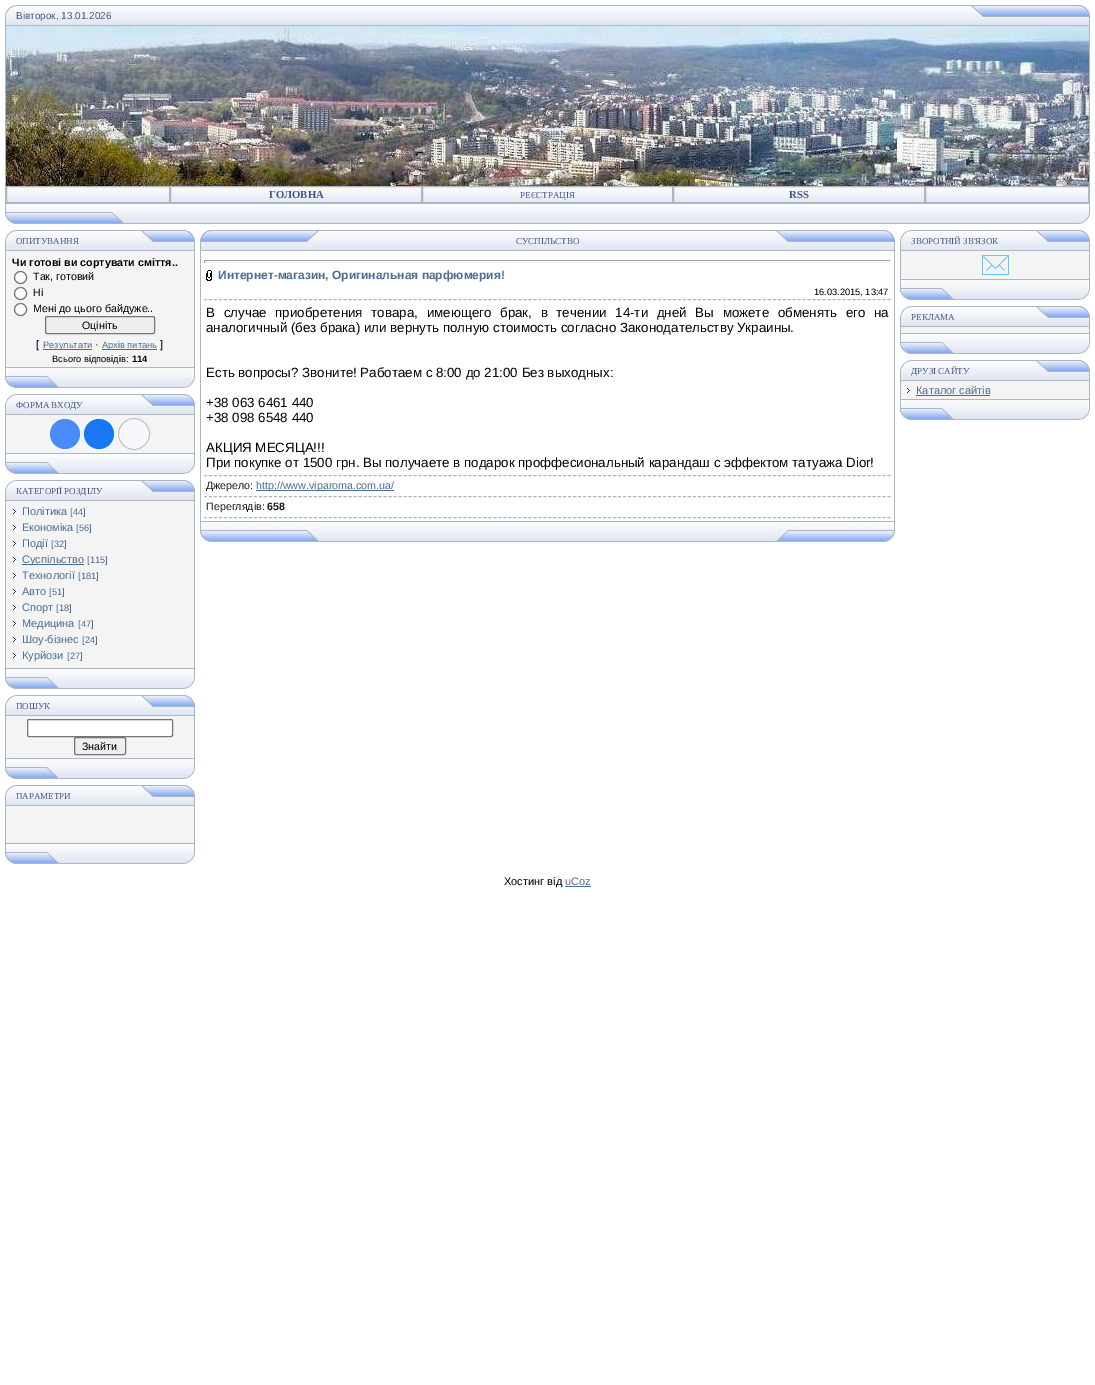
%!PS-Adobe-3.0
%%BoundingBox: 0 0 1095 1385
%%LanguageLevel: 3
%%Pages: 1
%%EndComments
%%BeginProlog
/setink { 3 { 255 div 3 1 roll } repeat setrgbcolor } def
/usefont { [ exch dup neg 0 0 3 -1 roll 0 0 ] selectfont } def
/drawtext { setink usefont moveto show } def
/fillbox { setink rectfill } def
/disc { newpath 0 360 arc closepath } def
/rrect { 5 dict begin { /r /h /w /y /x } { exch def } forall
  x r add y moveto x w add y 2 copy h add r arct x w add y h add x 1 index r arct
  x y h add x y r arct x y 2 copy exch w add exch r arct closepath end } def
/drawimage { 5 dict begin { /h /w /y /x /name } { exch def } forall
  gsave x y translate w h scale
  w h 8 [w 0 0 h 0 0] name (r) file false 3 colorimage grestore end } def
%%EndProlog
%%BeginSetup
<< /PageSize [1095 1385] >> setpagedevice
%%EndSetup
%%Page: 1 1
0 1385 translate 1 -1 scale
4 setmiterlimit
0 0 1095 1385 255 255 255 fillbox
(assets/img1.rgb) 5 5 11 21 drawimage
(assets/img2.rgb) 16 5 955 21 drawimage
(Вівторок, 13.01.2026) 16 19 /LiberationSans-Regular 10 68 85 136 drawtext
(assets/img3.rgb) 971 5 119 21 drawimage
1089 26 1 177 169 184 194 fillbox
5 26 1 177 169 184 194 fillbox
(assets/img4.rgb) 6 26 1083 160 drawimage
(assets/img5.rgb) 7 187 162 15 drawimage
6.5 186.5 163 16 rectstroke
(assets/img6.rgb) 171 187 250 15 drawimage
170.5 186.5 251 16 rectstroke
(ГОЛОВНА) 269 198 /LiberationSerif-Bold 10.7 68 85 136 drawtext
(assets/img7.rgb) 423 187 249 15 drawimage
169 184 194 setink
422.5 186.5 250 16 rectstroke
(РЕЄСТРАЦІЯ) 520 198 /LiberationSerif-Regular 9 68 85 136 drawtext
(assets/img6.rgb) 674 187 250 15 drawimage
169 184 194 setink
673.5 186.5 251 16 rectstroke
(RSS) 789 198 /LiberationSerif-Bold 10.7 68 85 136 drawtext
(assets/img5.rgb) 926 187 162 15 drawimage
169 184 194 setink
925.5 186.5 163 16 rectstroke
(assets/img8.rgb) 5 203 119 21 drawimage
(assets/img2.rgb) 124 203 955 21 drawimage
(assets/img9.rgb) 1079 203 11 21 drawimage
(assets/img1.rgb) 5 230 11 21 drawimage
(assets/img10.rgb) 16 230 125 21 drawimage
(ОПИТУВАННЯ) 16 244 /LiberationSerif-Regular 9 68 85 136 drawtext
(assets/img11.rgb) 141 230 54 21 drawimage
6 251 188 116 244 244 244 fillbox
194 251 1 116 169 184 194 fillbox
5 251 1 116 169 184 194 fillbox
(Чи готові ви сортувати сміття..) 12 266 /LiberationSans-Bold 10.7 0 0 0 drawtext
255 255 255 setink
20.5 277.5 6 disc gsave fill grestore
118 118 118 setink
stroke
(Так, готовий) 33 280 /LiberationSans-Regular 10.7 0 0 0 drawtext
255 255 255 setink
20.5 293.5 6 disc gsave fill grestore
118 118 118 setink
stroke
(Ні) 33 296 /LiberationSans-Regular 10.7 0 0 0 drawtext
255 255 255 setink
20.5 309.5 6 disc gsave fill grestore
118 118 118 setink
stroke
(Мені до цього байдуже..) 33 312 /LiberationSans-Regular 10.7 0 0 0 drawtext
239 239 239 setink
45.5 316.5 109 17 1.5 rrect gsave fill grestore
118 118 118 setink
stroke
(Оцініть) 82 329 /LiberationSans-Regular 10.7 0 0 0 drawtext
([) 36 348 /LiberationSans-Regular 11 0 0 0 drawtext
43 349 49 1 77 109 145 fillbox
(Результати) 43 348 /LiberationSans-Regular 9.25 77 109 145 drawtext
(·) 95 348 /LiberationSans-Regular 11 0 0 0 drawtext
102 349 55 1 77 109 145 fillbox
(Архів питань) 102 348 /LiberationSans-Regular 9.25 77 109 145 drawtext
(]) 160 348 /LiberationSans-Regular 11 0 0 0 drawtext
(Всього відповідів:) 52 362 /LiberationSans-Regular 9.25 0 0 0 drawtext
(114) 132 362 /LiberationSans-Bold 9.25 0 0 0 drawtext
(assets/img12.rgb) 5 367 190 21 drawimage
(assets/img1.rgb) 5 394 11 21 drawimage
(assets/img10.rgb) 16 394 125 21 drawimage
(ФОРМА ВХОДУ) 16 408 /LiberationSerif-Regular 9 68 85 136 drawtext
(assets/img11.rgb) 141 394 54 21 drawimage
6 415 188 38 244 244 244 fillbox
194 415 1 38 169 184 194 fillbox
5 415 1 38 169 184 194 fillbox
73 139 250 setink
65 434 15 disc fill
24 119 242 setink
99 434 15 disc fill
248 248 252 setink
134 434 15.5 disc gsave fill grestore
196 196 196 setink
stroke
(assets/img12.rgb) 5 453 190 21 drawimage
(assets/img1.rgb) 5 480 11 21 drawimage
(assets/img10.rgb) 16 480 125 21 drawimage
(КАТЕГОРІЇ РОЗДІЛУ) 16 494 /LiberationSerif-Regular 9 68 85 136 drawtext
(assets/img11.rgb) 141 480 54 21 drawimage
6 501 188 167 244 244 244 fillbox
194 501 1 167 169 184 194 fillbox
5 501 1 167 169 184 194 fillbox
(assets/img13.rgb) 12 509 4 5 drawimage
(Політика) 22 515 /LiberationSans-Regular 11 77 109 145 drawtext
([44]) 70 515 /LiberationSans-Regular 9.25 77 109 145 drawtext
(assets/img13.rgb) 12 525 4 5 drawimage
(Економіка) 22 531 /LiberationSans-Regular 11 77 109 145 drawtext
([56]) 76 531 /LiberationSans-Regular 9.25 77 109 145 drawtext
(assets/img13.rgb) 12 541 4 5 drawimage
(Події) 22 547 /LiberationSans-Regular 11 77 109 145 drawtext
([32]) 51 547 /LiberationSans-Regular 9.25 77 109 145 drawtext
(assets/img13.rgb) 12 557 4 5 drawimage
22 564 62 1 77 109 145 fillbox
(Суспільство) 22 563 /LiberationSans-Regular 11 77 109 145 drawtext
([115]) 87 563 /LiberationSans-Regular 9.25 77 109 145 drawtext
(assets/img13.rgb) 12 573 4 5 drawimage
(Технології) 22 579 /LiberationSans-Regular 11 77 109 145 drawtext
([181]) 78 579 /LiberationSans-Regular 9.25 77 109 145 drawtext
(assets/img13.rgb) 12 589 4 5 drawimage
(Авто) 22 595 /LiberationSans-Regular 11 77 109 145 drawtext
([51]) 49 595 /LiberationSans-Regular 9.25 77 109 145 drawtext
(assets/img13.rgb) 12 605 4 5 drawimage
(Спорт) 22 611 /LiberationSans-Regular 11 77 109 145 drawtext
([18]) 56 611 /LiberationSans-Regular 9.25 77 109 145 drawtext
(assets/img13.rgb) 12 621 4 5 drawimage
(Медицина) 22 627 /LiberationSans-Regular 11 77 109 145 drawtext
([47]) 78 627 /LiberationSans-Regular 9.25 77 109 145 drawtext
(assets/img13.rgb) 12 637 4 5 drawimage
(Шоу-бізнес) 22 643 /LiberationSans-Regular 11 77 109 145 drawtext
([24]) 82 643 /LiberationSans-Regular 9.25 77 109 145 drawtext
(assets/img13.rgb) 12 653 4 5 drawimage
(Курйози) 22 659 /LiberationSans-Regular 11 77 109 145 drawtext
([27]) 67 659 /LiberationSans-Regular 9.25 77 109 145 drawtext
(assets/img12.rgb) 5 668 190 21 drawimage
(assets/img1.rgb) 5 695 11 21 drawimage
(assets/img10.rgb) 16 695 125 21 drawimage
(ПОШУК) 16 709 /LiberationSerif-Regular 9 68 85 136 drawtext
(assets/img11.rgb) 141 695 54 21 drawimage
6 716 188 42 244 244 244 fillbox
194 716 1 42 169 184 194 fillbox
5 716 1 42 169 184 194 fillbox
255 255 255 setink
27.5 719.5 145 17 1.5 rrect gsave fill grestore
118 118 118 setink
stroke
239 239 239 setink
74.5 737.5 51 17 1.5 rrect gsave fill grestore
118 118 118 setink
stroke
(Знайти) 82 750 /LiberationSans-Regular 10.7 0 0 0 drawtext
(assets/img12.rgb) 5 758 190 21 drawimage
(assets/img1.rgb) 5 785 11 21 drawimage
(assets/img10.rgb) 16 785 125 21 drawimage
(ПАРАМЕТРИ) 16 799 /LiberationSerif-Regular 9 68 85 136 drawtext
(assets/img11.rgb) 141 785 54 21 drawimage
6 806 188 37 244 244 244 fillbox
194 806 1 37 169 184 194 fillbox
5 806 1 37 169 184 194 fillbox
(assets/img12.rgb) 5 843 190 21 drawimage
(assets/img14.rgb) 200 230 119 21 drawimage
(assets/img15.rgb) 319 230 457 21 drawimage
(СУСПІЛЬСТВО) 516 244 /LiberationSerif-Regular 9 68 85 136 drawtext
(assets/img3.rgb) 776 230 119 21 drawimage
894 251 1 270 169 184 194 fillbox
200 251 1 270 169 184 194 fillbox
204 260 687 1 159 159 159 fillbox
890 260 1 3 238 238 238 fillbox
204 262 687 1 238 238 238 fillbox
204 260 1 3 159 159 159 fillbox
(assets/img16.rgb) 206 270 6 11 drawimage
(Интернет-магазин, Оригинальная парфюмерия!) 218 279 /LiberationSans-Bold 12 77 109 145 drawtext
(16.03.2015, 13:47) 814 295 /LiberationSans-Regular 9.25 0 0 0 drawtext
169 184 194 setink
[3 1.99] 0 setdash
204 299.5 moveto 891 299.5 lineto stroke
/LiberationSans-Regular 13.33 usefont
0 0 0 setink
206 317 moveto 5 0 32 (В случае приобретения товара, имеющего брак, в течении 14-ти дней Вы можете обменять его на) widthshow
(аналогичный \(без брака\) или вернуть полную стоимость согласно Законодательству Украины.) 206 332 /LiberationSans-Regular 13.33 0 0 0 drawtext
(Есть вопросы? Звоните! Работаем с 8:00 до 21:00 Без выходных:) 206 377 /LiberationSans-Regular 13.33 0 0 0 drawtext
(+38 063 6461 440) 206 407 /LiberationSans-Regular 13.33 0 0 0 drawtext
(+38 098 6548 440) 206 422 /LiberationSans-Regular 13.33 0 0 0 drawtext
(АКЦИЯ МЕСЯЦА!!!) 206 452 /LiberationSans-Regular 13.33 0 0 0 drawtext
(При покупке от 1500 грн. Вы получаете в подарок проффесиональный карандаш с эффектом татуажа Dior!) 206 467 /LiberationSans-Regular 13.33 0 0 0 drawtext
169 184 194 setink
204 475.5 moveto 891 475.5 lineto stroke
204 496.5 moveto 891 496.5 lineto stroke
(Джерело:) 206 489 /LiberationSans-Regular 10.7 26 26 26 drawtext
256 490 138 1 77 109 145 fillbox
(http://www.viparoma.com.ua/) 256 489 /LiberationSans-Regular 10.7 77 109 145 drawtext
169 184 194 setink
204 517.5 moveto 891 517.5 lineto stroke
(Переглядів:) 206 510 /LiberationSans-Regular 10.7 26 26 26 drawtext
(658) 267 510 /LiberationSans-Bold 10.7 26 26 26 drawtext
(assets/img8.rgb) 200 521 119 21 drawimage
(assets/img15.rgb) 319 521 457 21 drawimage
(assets/img17.rgb) 776 521 119 21 drawimage
(assets/img1.rgb) 900 230 11 21 drawimage
(assets/img10.rgb) 911 230 125 21 drawimage
(ЗВОРОТНІЙ ЗВ'ЯЗОК) 911 244 /LiberationSerif-Regular 9 68 85 136 drawtext
(assets/img11.rgb) 1036 230 54 21 drawimage
901 251 188 28 244 244 244 fillbox
1089 251 1 28 169 184 194 fillbox
900 251 1 28 169 184 194 fillbox
(assets/img18.rgb) 982 255 27 20 drawimage
(assets/img12.rgb) 900 279 190 21 drawimage
(assets/img1.rgb) 900 306 11 21 drawimage
(assets/img10.rgb) 911 306 125 21 drawimage
(РЕКЛАМА) 911 320 /LiberationSerif-Regular 9 68 85 136 drawtext
(assets/img11.rgb) 1036 306 54 21 drawimage
900 327 190 6 244 244 244 fillbox
1089 327 1 6 169 184 194 fillbox
900 327 1 6 169 184 194 fillbox
(assets/img12.rgb) 900 333 190 21 drawimage
(assets/img1.rgb) 900 360 11 21 drawimage
(assets/img10.rgb) 911 360 125 21 drawimage
(ДРУЗІ САЙТУ) 911 374 /LiberationSerif-Regular 9 68 85 136 drawtext
(assets/img11.rgb) 1036 360 54 21 drawimage
901 381 188 18 244 244 244 fillbox
1089 381 1 18 169 184 194 fillbox
900 381 1 18 169 184 194 fillbox
(assets/img13.rgb) 906 388 4 5 drawimage
(Каталог сайтів) 916 394 /LiberationSans-Regular 11 77 109 145 drawtext
916 395 74 1 77 109 145 fillbox
(assets/img12.rgb) 900 399 190 21 drawimage
(Хостинг від) 504 885 /LiberationSans-Regular 11 0 0 0 drawtext
(uCoz) 565 885 /LiberationSans-Regular 11 77 109 145 drawtext
565 886 26 1 77 109 145 fillbox
showpage
%%EOF
